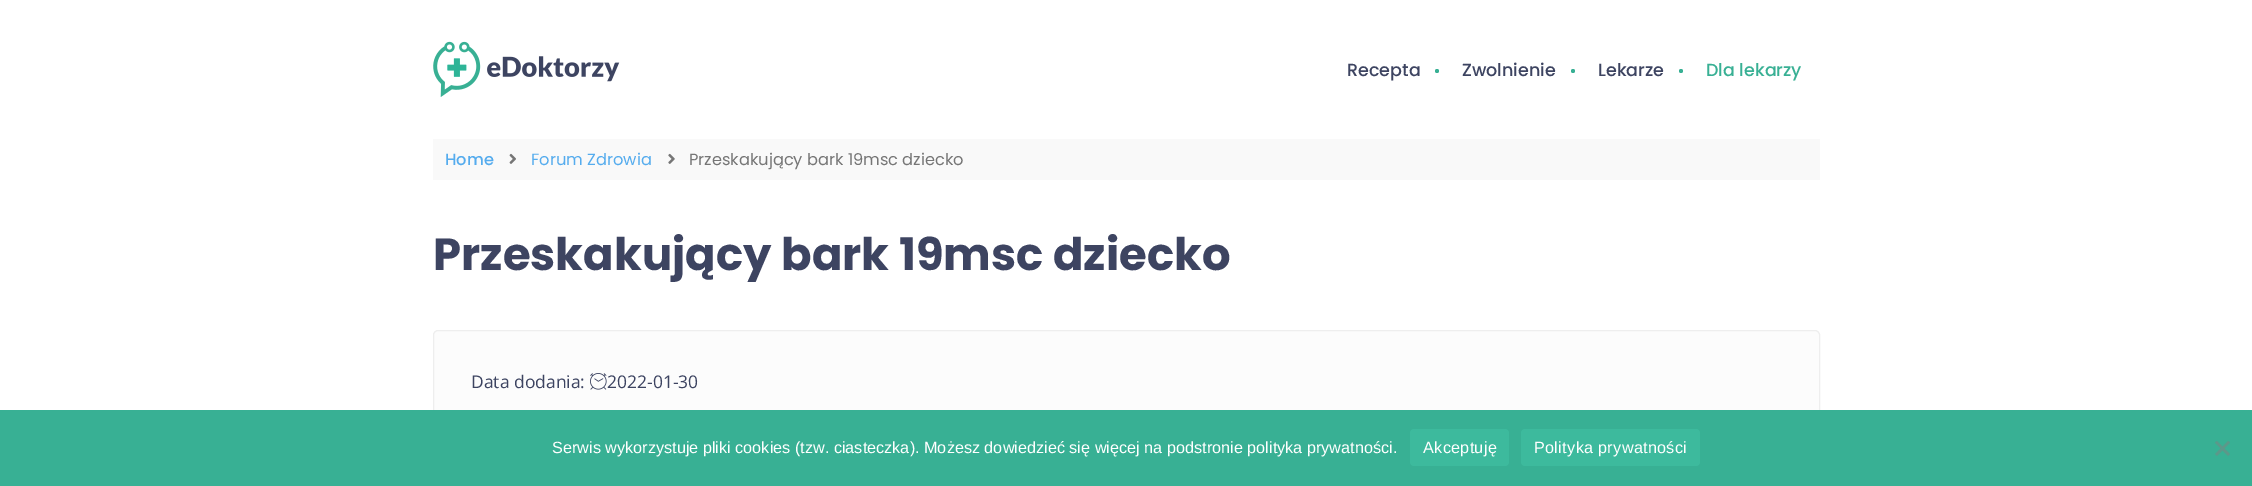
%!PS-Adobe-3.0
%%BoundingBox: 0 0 2252 486
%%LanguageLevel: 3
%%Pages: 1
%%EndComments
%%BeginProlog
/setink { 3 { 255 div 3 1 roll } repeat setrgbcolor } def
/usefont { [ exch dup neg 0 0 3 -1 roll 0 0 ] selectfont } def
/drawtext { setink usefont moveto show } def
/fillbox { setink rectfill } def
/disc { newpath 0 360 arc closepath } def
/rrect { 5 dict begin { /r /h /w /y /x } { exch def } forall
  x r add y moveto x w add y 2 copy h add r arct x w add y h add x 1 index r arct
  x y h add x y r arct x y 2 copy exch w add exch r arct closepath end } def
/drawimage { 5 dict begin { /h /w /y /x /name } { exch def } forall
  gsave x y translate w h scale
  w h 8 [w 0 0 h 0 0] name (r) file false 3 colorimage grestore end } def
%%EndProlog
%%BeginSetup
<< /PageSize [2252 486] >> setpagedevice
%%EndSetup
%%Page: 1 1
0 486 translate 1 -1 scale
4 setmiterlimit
0 0 2252 486 255 255 255 fillbox
(assets/img1.rgb) 433 41 187 56 drawimage
(Recepta) 1347 76 /Poppins-Medium 17.5 61 68 97 drawtext
56 176 148 setink
1437 71 2 disc fill
(Zwolnienie) 1462 76 /Poppins-Medium 17.5 61 68 97 drawtext
56 176 148 setink
1573 71 2 disc fill
(Lekarze) 1598 76 /Poppins-Medium 17.5 61 68 97 drawtext
56 176 148 setink
1681 71 2 disc fill
(Dla lekarzy) 1706 76 /Poppins-Medium 17.5 56 176 148 drawtext
433 139 1387 41 249 249 249 fillbox
(Home) 445 165 /Poppins-Medium 16.25 85 172 238 drawtext
(assets/img2.rgb) 509 153 7 11 drawimage
(Forum Zdrowia) 531 165 /Poppins-Regular 16.25 85 172 238 drawtext
(assets/img3.rgb) 668 153 7 11 drawimage
(Przeskakujący bark 19msc dziecko) 689 165 /Poppins-Regular 16.25 118 118 118 drawtext
(Przeskakujący bark 19msc dziecko) 433 270 /Poppins-Bold 45 61 68 97 drawtext
252 252 252 setink
433.5 330.5 1386 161 4.5 rrect gsave fill grestore
238 238 238 setink
stroke
(Data dodania:) 471 388 /OpenSans-Regular 17.5 61 68 97 drawtext
(assets/img4.rgb) 590 373 17 17 drawimage
(2022-01-30) 607 388 /OpenSans-Regular 17.5 61 68 97 drawtext
0 410 2252 76 56 176 148 fillbox
(Serwis wykorzystuje pliki cookies \(tzw. ciasteczka\). Możesz dowiedzieć się więcej na podstronie polityka prywatności.) 552 453 /LiberationSans-Regular 16.25 255 255 255 drawtext
61 186 157 setink
1410 429 99 37 4 rrect fill
255 255 255 setink
1423 453 moveto 0.3 0 (Akceptuję) ashow
61 186 157 setink
1521 429 179 37 4 rrect fill
255 255 255 setink
1534 453 moveto 0.3 0 (Polityka prywatności) ashow
92 152 138 setink
2228 441 moveto 2230 442.5 lineto 2217 456 lineto 2215 454 lineto closepath fill
2215 442.5 moveto 2217 441 lineto 2230 454 lineto 2228 456 lineto closepath fill
showpage
%%EOF
